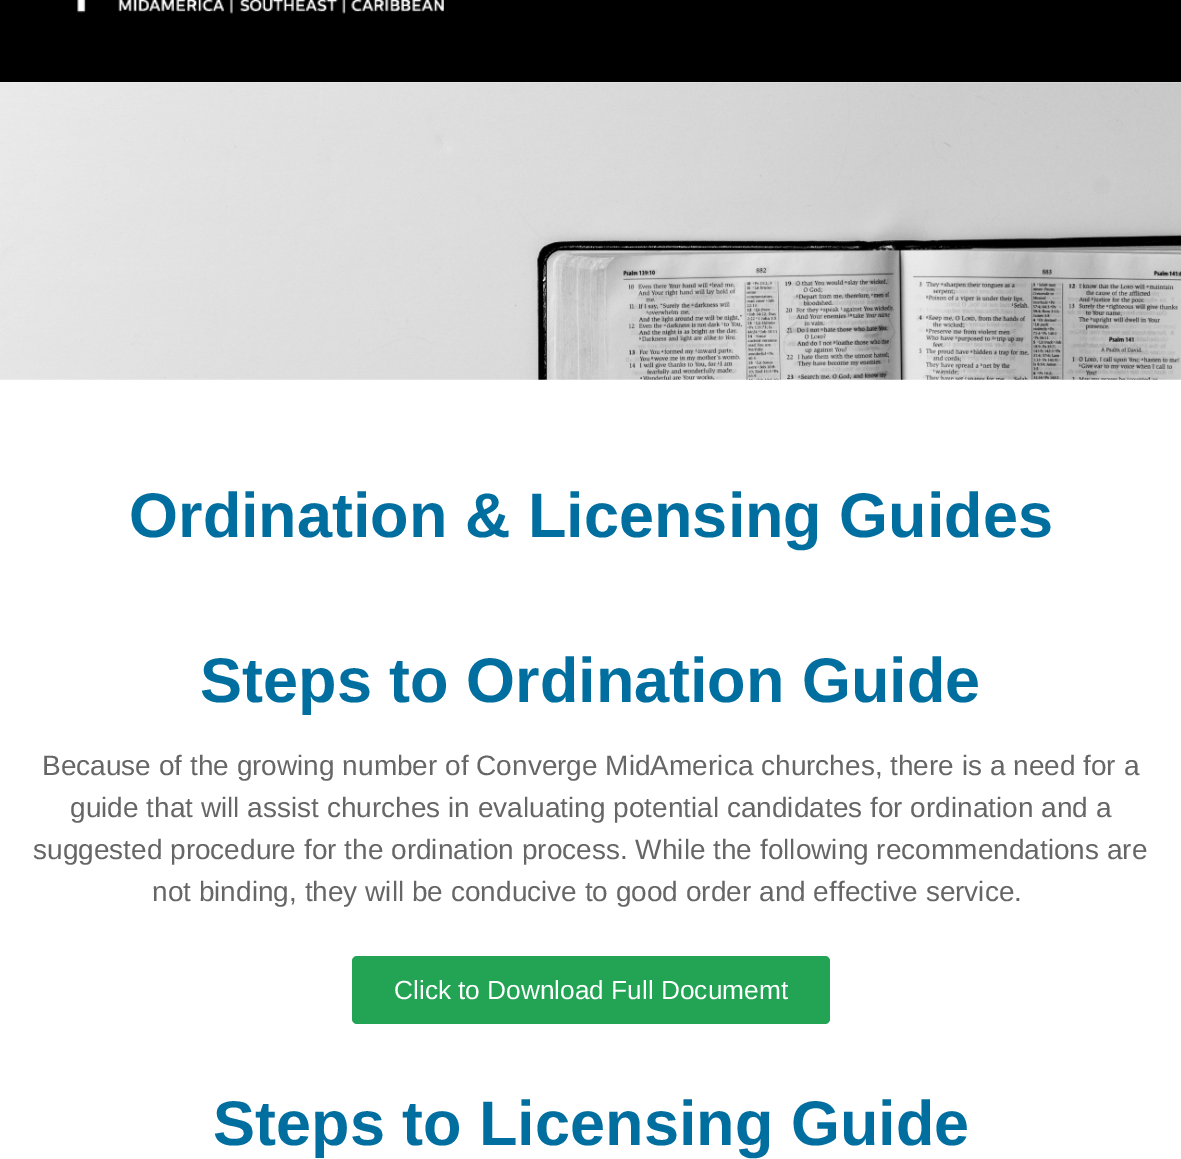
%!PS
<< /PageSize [1181 1159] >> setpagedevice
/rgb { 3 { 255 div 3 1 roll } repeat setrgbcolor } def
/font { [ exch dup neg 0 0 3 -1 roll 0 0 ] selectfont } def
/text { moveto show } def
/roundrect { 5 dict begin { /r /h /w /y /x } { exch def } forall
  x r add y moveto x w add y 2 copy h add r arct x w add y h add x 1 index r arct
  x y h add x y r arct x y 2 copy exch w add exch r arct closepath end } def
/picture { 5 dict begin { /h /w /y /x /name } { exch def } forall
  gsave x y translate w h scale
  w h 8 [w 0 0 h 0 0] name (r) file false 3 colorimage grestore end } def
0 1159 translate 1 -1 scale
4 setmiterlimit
255 255 255 rgb
0 0 1181 1159 rectfill
0 0 0 rgb
0 0 1181 82 rectfill
(img_01.rgb) 77 0 367 14 picture
(img_02.rgb) 0 82 1181 298 picture
35 164 85 rgb
352 956 478 68 5 roundrect fill
/LiberationSans-Bold 63 font
0 110 159 rgb
(Ordination & Licensing Guides) 129 537 text
(Steps to Ordination Guide) 200 702 text
/LiberationSans-Regular 28 font
102 102 102 rgb
(Because of the growing number of Converge MidAmerica churches, there is a need for a) 42 775 text
(guide that will assist churches in evaluating potential candidates for ordination and a) 70 817 text
(suggested procedure for the ordination process. While the following recommendations are) 33 859 text
(not binding, they will be conducive to good order and effective service.) 152 901 text
/LiberationSans-Regular 26.25 font
255 255 255 rgb
(Click to Download Full Documemt) 394 999 text
/LiberationSans-Bold 63 font
0 110 159 rgb
(Steps to Licensing Guide) 213 1145 text
showpage
